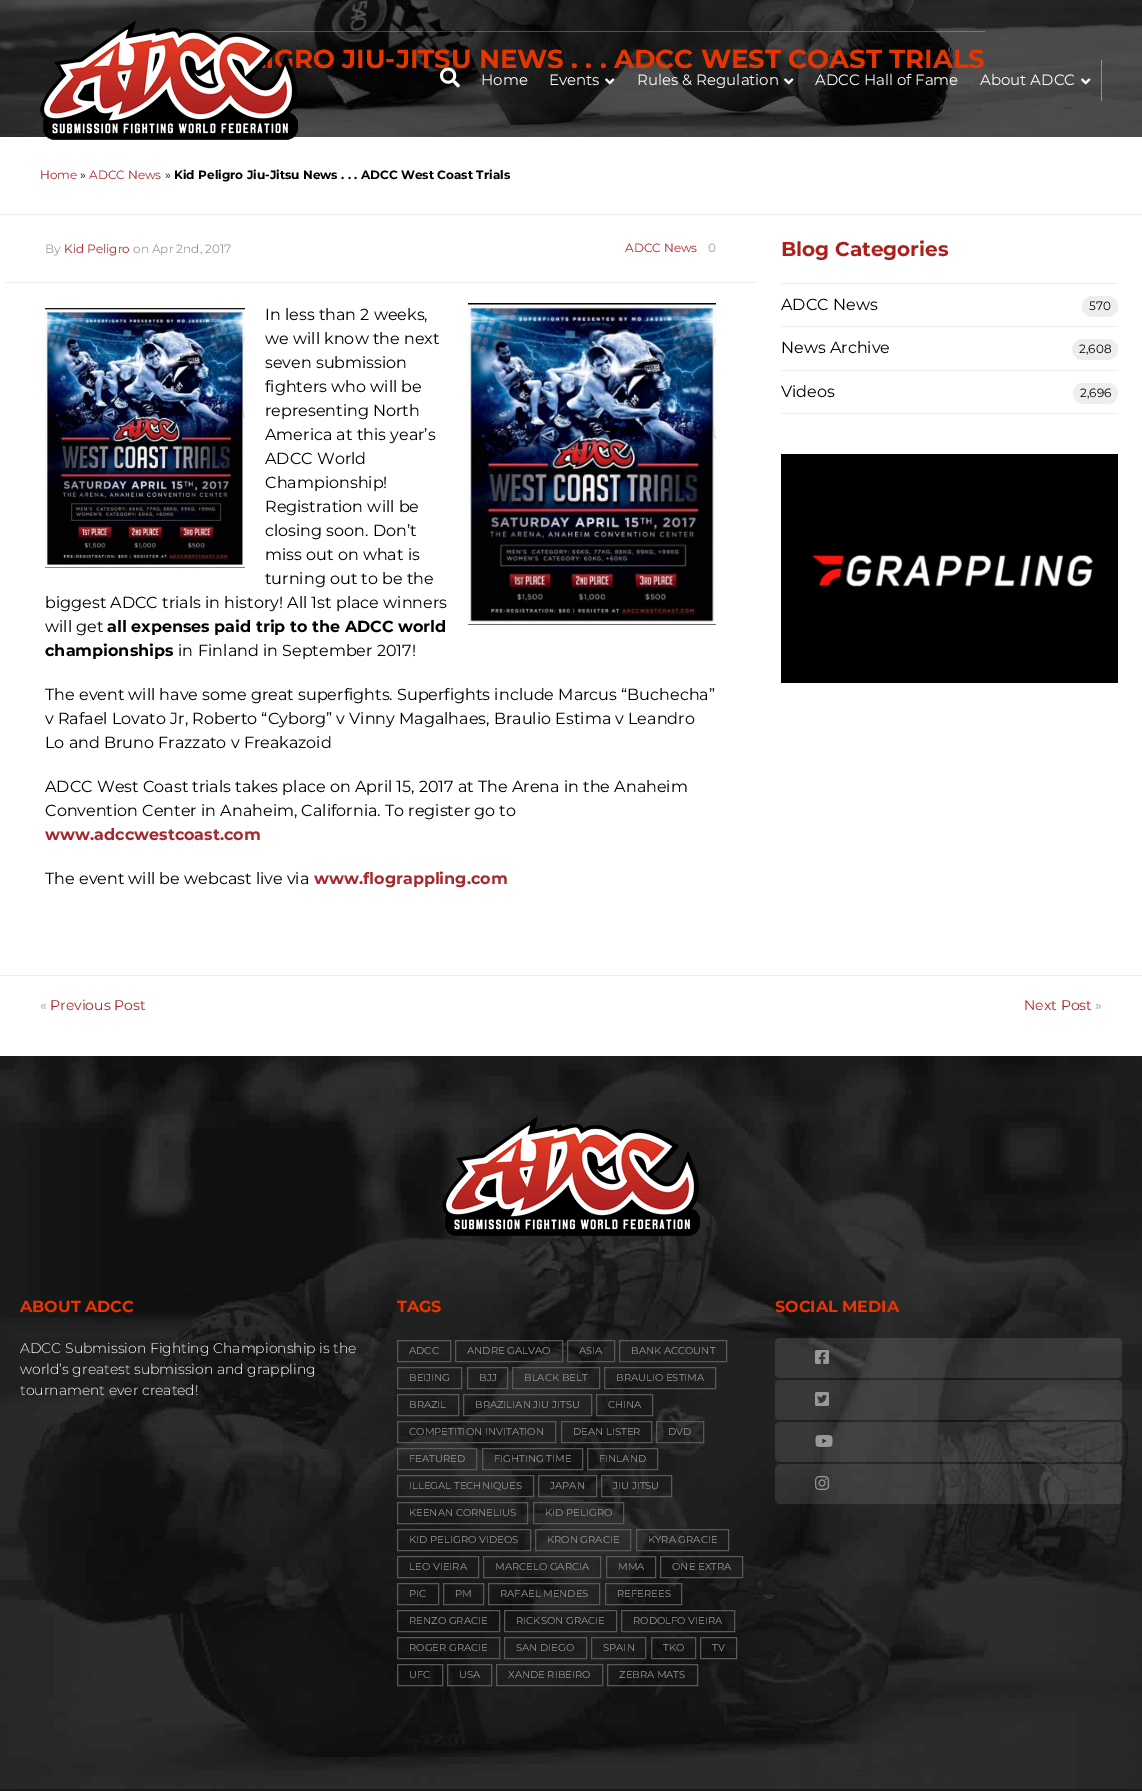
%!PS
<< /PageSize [1142 1791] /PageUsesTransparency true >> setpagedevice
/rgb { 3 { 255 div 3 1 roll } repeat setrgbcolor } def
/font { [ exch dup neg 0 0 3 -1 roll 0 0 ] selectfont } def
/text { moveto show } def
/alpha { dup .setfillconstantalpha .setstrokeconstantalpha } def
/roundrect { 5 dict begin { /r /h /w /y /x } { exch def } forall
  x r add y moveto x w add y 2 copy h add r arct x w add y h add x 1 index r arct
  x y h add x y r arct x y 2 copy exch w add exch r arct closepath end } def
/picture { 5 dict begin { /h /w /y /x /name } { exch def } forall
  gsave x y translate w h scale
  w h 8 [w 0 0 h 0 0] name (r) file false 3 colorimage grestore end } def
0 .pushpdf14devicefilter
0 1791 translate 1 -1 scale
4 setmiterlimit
255 255 255 rgb
0 0 1142 1791 rectfill
(img_01.rgb) 0 0 1142 137 picture
0.25 alpha
179 31 806 1 rectfill
1 alpha
238 238 238 rgb
0 214 1142 1 rectfill
5 282 751 1 rectfill
(img_02.rgb) 45 308 200 260 picture
(img_03.rgb) 468 303 248 322 picture
781 283 337 1 rectfill
781 326 337 1 rectfill
1082 296 36 21 10.5 roundrect fill
781 370 337 1 rectfill
1072 339 46 21 10.5 roundrect fill
781 413 337 1 rectfill
1073 383 45 21 10.5 roundrect fill
(img_04.rgb) 781 454 337 229 picture
0 975 1142 1 rectfill
(img_05.rgb) 0 1056 1142 733 picture
(img_06.rgb) 442 1116 258 120 picture
89 89 89 rgb
397.5 1340.5 53 21 rectstroke
455.5 1340.5 107 21 rectstroke
567.5 1340.5 47 21 rectstroke
619.5 1340.5 107 21 rectstroke
397.5 1367.5 64 21 rectstroke
467.5 1367.5 40 21 rectstroke
512.5 1367.5 87 21 rectstroke
604.5 1367.5 111 21 rectstroke
397.5 1394.5 61 21 rectstroke
463.5 1394.5 128 21 rectstroke
596.5 1394.5 56 21 rectstroke
397.5 1421.5 158 21 rectstroke
561.5 1421.5 90 21 rectstroke
656.5 1421.5 47 21 rectstroke
397.5 1448.5 79 21 rectstroke
482.5 1448.5 100 21 rectstroke
587.5 1448.5 70 21 rectstroke
397.5 1475.5 136 21 rectstroke
538.5 1475.5 58 21 rectstroke
601.5 1475.5 70 21 rectstroke
397.5 1502.5 130 21 rectstroke
533.5 1502.5 90 21 rectstroke
397.5 1529.5 133 21 rectstroke
535.5 1529.5 95 21 rectstroke
636.5 1529.5 92 21 rectstroke
397.5 1556.5 81 21 rectstroke
483.5 1556.5 117 21 rectstroke
606.5 1556.5 49 21 rectstroke
660.5 1556.5 82 21 rectstroke
397.5 1583.5 41 21 rectstroke
443.5 1583.5 40 21 rectstroke
488.5 1583.5 111 21 rectstroke
605.5 1583.5 76 21 rectstroke
397.5 1610.5 102 21 rectstroke
504.5 1610.5 112 21 rectstroke
621.5 1610.5 113 21 rectstroke
397.5 1637.5 102 21 rectstroke
504.5 1637.5 82 21 rectstroke
591.5 1637.5 54 21 rectstroke
651.5 1637.5 44 21 rectstroke
700.5 1637.5 36 21 rectstroke
397.5 1664.5 45 21 rectstroke
447.5 1664.5 44 21 rectstroke
496.5 1664.5 106 21 rectstroke
607.5 1664.5 90 21 rectstroke
0.1 alpha
255 255 255 rgb
775 1338 347 40 5 roundrect fill
1 alpha
(img_07.rgb) 815 1350 14 14 picture
0.1 alpha
775 1380 347 40 5 roundrect fill
1 alpha
(img_08.rgb) 815 1392 14 14 picture
0.1 alpha
775 1422 347 40 5 roundrect fill
1 alpha
(img_09.rgb) 815 1435 18 12 picture
0.1 alpha
775 1464 347 40 5 roundrect fill
1 alpha
(img_10.rgb) 815 1476 14 14 picture
25 25 25 rgb
0 1789 1142 2 rectfill
0.4 alpha
255 255 255 rgb
1101 60 1 41 rectfill
1 alpha
(img_13.rgb) 605 78 10 7 picture
(img_14.rgb) 784 78 10 7 picture
(img_15.rgb) 1081 78 10 7 picture
/Montserrat-Bold 26 font
231 53 0 rgb
(RO JIU-JITSU NEWS . . . ADCC WEST COAST TRIALS) 294 68 text
/Montserrat-Regular 12 font
169 39 44 rgb
(Home) 40 179 text
0 0 0 rgb
(») 80 179 text
169 39 44 rgb
(ADCC News) 89 179 text
0 0 0 rgb
(») 165 179 text
/Montserrat-Bold 12 font
(Kid Peligro Jiu-Jitsu News . . . ADCC West Coast Trials) 174 179 text
/Montserrat-Regular 12 font
153 153 153 rgb
(By) 45 253 text
169 39 44 rgb
(Kid Peligro) 64 253 text
153 153 153 rgb
(on Apr 2nd, 2017) 133 253 text
169 39 44 rgb
(ADCC News) 625 252 text
153 153 153 rgb
(0) 708 252 text
/Montserrat-Regular 16 font
0 0 0 rgb
(In less than 2 weeks,) 265 320 text
(we will know the next) 265 344 text
(seven submission) 265 368 text
(fighters who will be) 265 392 text
(representing North) 265 416 text
(America at this year’s) 265 440 text
(ADCC World) 265 464 text
(Championship!) 265 488 text
(Registration will be) 265 512 text
(closing soon. Don’t) 265 536 text
(miss out on what is) 265 560 text
(turning out to be the) 265 584 text
(biggest ADCC trials in history! All 1st place winners) 45 608 text
(will get) 45 632 text
/Montserrat-Bold 16 font
(all expenses paid trip to the ADCC world) 107 632 text
(championships) 45 656 text
/Montserrat-Regular 16 font
(in) 178 656 text
(Finland in September 2017!) 198 656 text
(The event will have some great superfights. Superfights include Marcus “Buchecha”) 45 700 text
(v Rafael Lovato Jr, Roberto “Cyborg” v Vinny Magalhaes, Braulio Estima v Leandro) 45 724 text
(Lo and Bruno Frazzato v Freakazoid) 45 748 text
(ADCC West Coast trials takes place on April 15, 2017 at The Arena in the Anaheim) 45 792 text
(Convention Center in Anaheim, California. To register go to) 45 816 text
/Montserrat-Bold 16 font
169 39 44 rgb
(www.adccwestcoast.com) 45 840 text
/Montserrat-Regular 16 font
0 0 0 rgb
(The event will be webcast live via) 45 884 text
/Montserrat-Bold 16 font
169 39 44 rgb
(www.flograppling.com) 314 884 text
/Montserrat-Bold 20 font
172 31 26 rgb
(Blog Categories) 781 256 text
/Montserrat-Regular 16 font
0 0 0 rgb
(ADCC News) 781 310 text
/Montserrat-Regular 12 font
(570) 1089 310 text
/Montserrat-Regular 16 font
(News Archive) 781 353 text
/Montserrat-Regular 12 font
(2,608) 1079 353 text
/Montserrat-Regular 16 font
(Videos) 781 397 text
/Montserrat-Regular 12 font
(2,696) 1080 397 text
/Montserrat-Regular 14 font
153 153 153 rgb
(«) 40 1010 text
169 39 44 rgb
(Previous Post) 50 1010 text
(Next Post) 1024 1010 text
153 153 153 rgb
(») 1095 1010 text
/Montserrat-Bold 16 font
231 53 0 rgb
(ABOUT ADCC) 20 1312 text
/Montserrat-Light 14 font
255 255 255 rgb
(ADCC Submission Fighting Championship is the) 20 1353 text
(world’s greatest submission and grappling) 20 1374 text
(tournament ever created!) 20 1395 text
/Montserrat-Bold 16 font
231 53 0 rgb
(TAGS) 397 1312 text
/Montserrat-Regular 10 font
153 153 153 rgb
(ADCC) 409 1354 text
(ANDRE GALVAO) 467 1354 text
(ASIA) 579 1354 text
(BANK ACCOUNT) 631 1354 text
(BEIJING) 409 1381 text
(BJJ) 479 1381 text
(BLACK BELT) 524 1381 text
(BRAULIO ESTIMA) 616 1381 text
(BRAZIL) 409 1408 text
(BRAZILIAN JIU JITSU) 475 1408 text
(CHINA) 608 1408 text
(COMPETITION INVITATION) 409 1435 text
(DEAN LISTER) 573 1435 text
(DVD) 668 1435 text
(FEATURED) 409 1462 text
(FIGHTING TIME) 494 1462 text
(FINLAND) 599 1462 text
(ILLEGAL TECHNIQUES) 409 1489 text
(JAPAN) 550 1489 text
(JIU JITSU) 613 1489 text
(KEENAN CORNELIUS) 409 1516 text
(KID PELIGRO) 545 1516 text
(KID PELIGRO VIDEOS) 409 1543 text
(KRON GRACIE) 547 1543 text
(KYRA GRACIE) 648 1543 text
(LEO VIEIRA) 409 1570 text
(MARCELO GARCIA) 495 1570 text
(MMA) 618 1570 text
(ONE EXTRA) 672 1570 text
(PIC) 409 1597 text
(PM) 455 1597 text
(RAFAEL MENDES) 500 1597 text
(REFEREES) 617 1597 text
(RENZO GRACIE) 409 1624 text
(RICKSON GRACIE) 516 1624 text
(RODOLFO VIEIRA) 633 1624 text
(ROGER GRACIE) 409 1651 text
(SAN DIEGO) 516 1651 text
(SPAIN) 603 1651 text
(TKO) 663 1651 text
(TV) 712 1651 text
(UFC) 409 1678 text
(USA) 459 1678 text
(XANDE RIBEIRO) 508 1678 text
(ZEBRA MATS) 619 1678 text
/Montserrat-Bold 16 font
231 53 0 rgb
(SOCIAL MEDIA) 775 1312 text
(img_11.rgb) 40 20 258 120 picture
(img_12.rgb) 440 67 20 21 picture
/Montserrat-Regular 15 font
255 255 255 rgb
(Home) 481 85 text
(Events) 549 85 text
(Rules & Regulation) 637 85 text
(ADCC Hall of Fame) 815 85 text
(About ADCC) 980 85 text
.poppdf14devicefilter showpage
